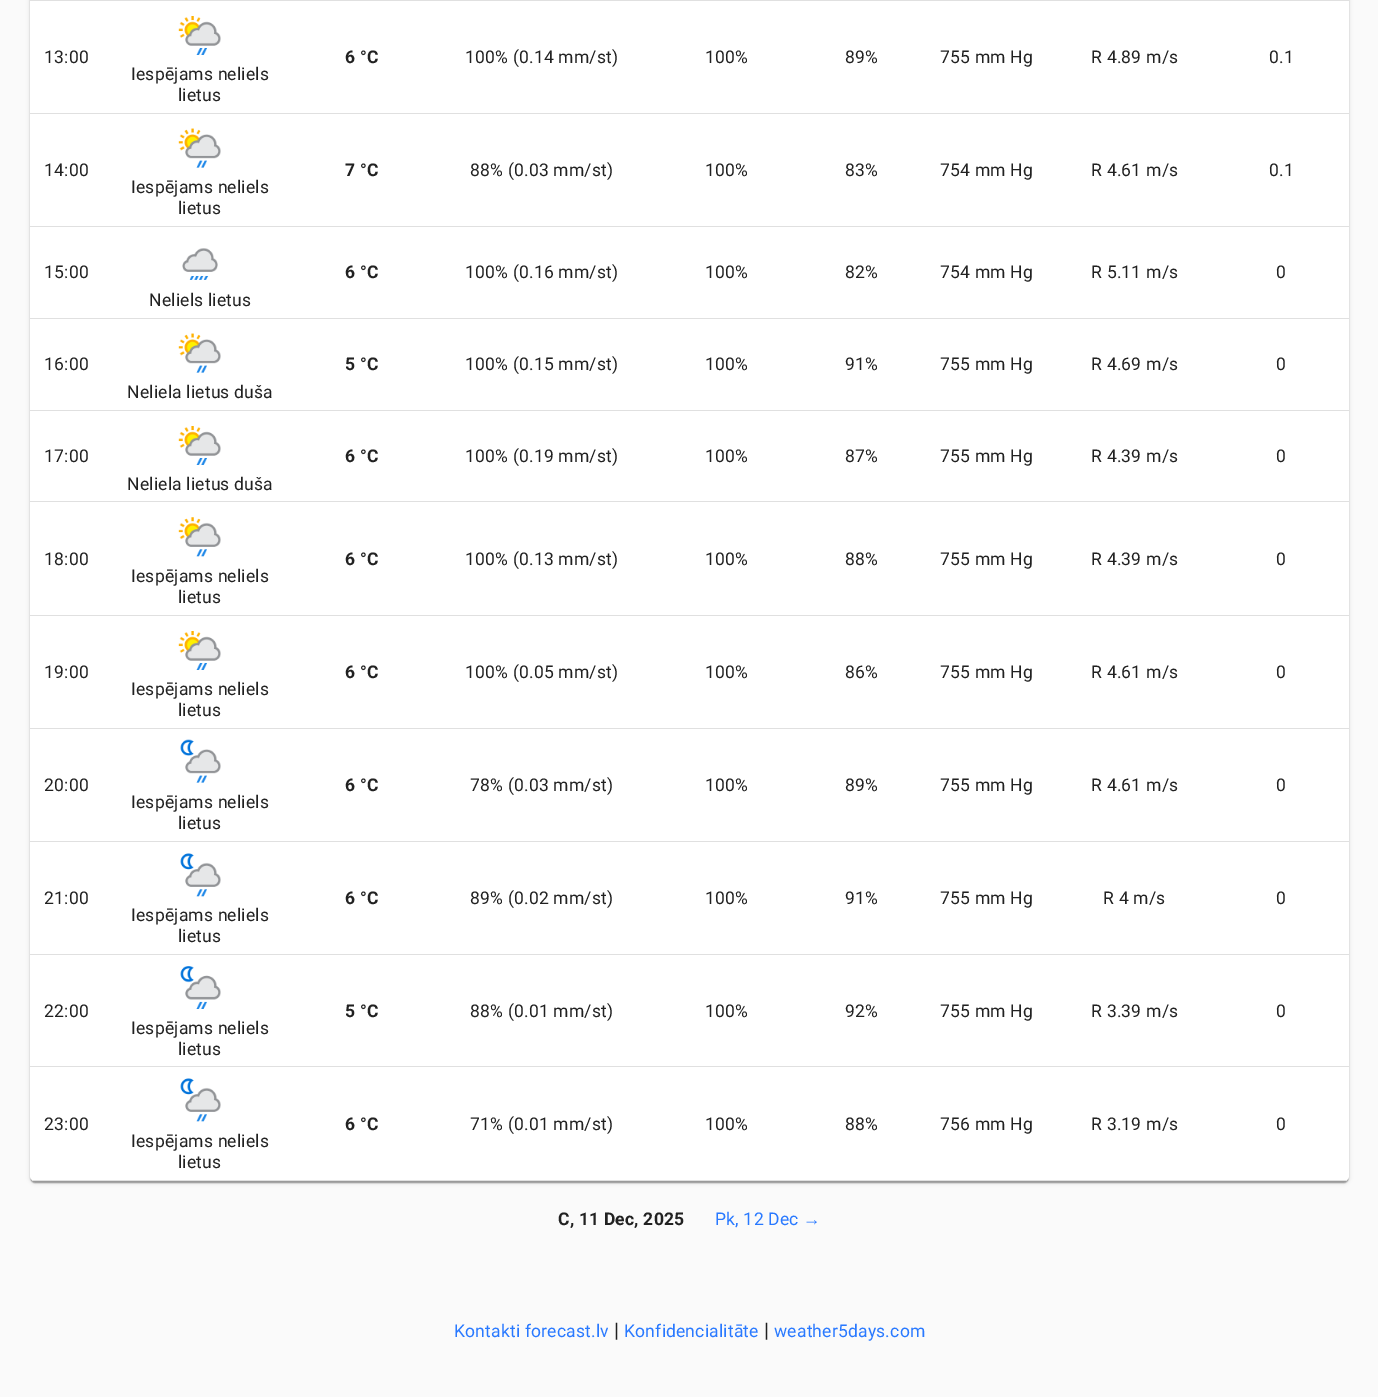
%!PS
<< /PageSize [1378 1397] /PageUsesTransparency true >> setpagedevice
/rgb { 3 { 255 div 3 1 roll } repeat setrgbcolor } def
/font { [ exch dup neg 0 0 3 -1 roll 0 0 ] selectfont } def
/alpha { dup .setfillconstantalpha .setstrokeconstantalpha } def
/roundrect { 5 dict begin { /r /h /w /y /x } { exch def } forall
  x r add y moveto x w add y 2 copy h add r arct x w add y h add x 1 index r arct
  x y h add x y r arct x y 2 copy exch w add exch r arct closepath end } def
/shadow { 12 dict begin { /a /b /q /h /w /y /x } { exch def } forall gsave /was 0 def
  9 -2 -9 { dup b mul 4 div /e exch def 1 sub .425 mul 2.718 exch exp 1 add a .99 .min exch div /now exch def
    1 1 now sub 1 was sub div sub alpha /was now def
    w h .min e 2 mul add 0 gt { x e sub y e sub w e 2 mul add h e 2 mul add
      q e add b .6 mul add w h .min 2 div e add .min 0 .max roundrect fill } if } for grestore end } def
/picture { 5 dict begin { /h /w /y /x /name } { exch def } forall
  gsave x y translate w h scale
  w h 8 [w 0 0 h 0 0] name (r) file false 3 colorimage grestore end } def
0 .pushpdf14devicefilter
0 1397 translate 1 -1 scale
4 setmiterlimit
250 250 250 rgb
0 0 1378 1397 rectfill
0 0 0 rgb
30 -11 1319 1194 5 2 0.12 shadow
30 -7 1319 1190 5 0.5 0.14 shadow
31 -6 1317 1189 4 0.5 0.2 shadow
255 255 255 rgb
30 -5 1319 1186 5 roundrect fill
224 224 224 rgb
30 0 1319 1 rectfill
30 113 1319 1 rectfill
(img_01.rgb) 178 16 43 39 picture
30 226 1319 1 rectfill
(img_02.rgb) 178 128 43 40 picture
30 318 1319 1 rectfill
(img_03.rgb) 182 248 36 32 picture
30 410 1319 1 rectfill
(img_04.rgb) 178 333 43 40 picture
30 501 1319 1 rectfill
(img_05.rgb) 178 426 43 39 picture
30 615 1319 1 rectfill
(img_06.rgb) 178 517 43 40 picture
30 728 1319 1 rectfill
(img_01.rgb) 178 631 43 39 picture
30 841 1319 1 rectfill
(img_07.rgb) 180 739 41 44 picture
30 954 1319 1 rectfill
(img_08.rgb) 180 853 41 44 picture
30 1066 1319 1 rectfill
(img_09.rgb) 180 966 41 43 picture
gsave
30 -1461 1319 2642 5 roundrect clip newpath
1213 1180 136 1 rectfill
grestore
113 1180 1101 1 rectfill
gsave
30 -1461 1319 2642 5 roundrect clip newpath
30 1180 84 1 rectfill
grestore
(img_08.rgb) 180 1078 41 44 picture
/Roboto-Regular 17.5 font
33 33 33 rgb
44 63 moveto 0.2 0 (13:00) ashow
/Roboto-Bold 17.5 font
345 63 moveto 0.2 0 (6 °C) ashow
/Roboto-Regular 17.5 font
465 63 moveto 0.2 0 (100% \(0.14 mm/st\)) ashow
705 63 moveto 0.2 0 (100%) ashow
845 63 moveto 0.2 0 (89%) ashow
940 63 moveto 0.2 0 (755 mm Hg) ashow
1091 63 moveto 0.2 0 (R 4.89 m/s) ashow
1269 63 moveto 0.2 0 (0.1) ashow
131 80 moveto 0.2 0 (Iespējams neliels) ashow
178 101 moveto 0.2 0 (lietus) ashow
44 176 moveto 0.2 0 (14:00) ashow
/Roboto-Bold 17.5 font
345 176 moveto 0.2 0 (7 °C) ashow
/Roboto-Regular 17.5 font
470 176 moveto 0.2 0 (88% \(0.03 mm/st\)) ashow
705 176 moveto 0.2 0 (100%) ashow
845 176 moveto 0.2 0 (83%) ashow
940 176 moveto 0.2 0 (754 mm Hg) ashow
1091 176 moveto 0.2 0 (R 4.61 m/s) ashow
1269 176 moveto 0.2 0 (0.1) ashow
131 193 moveto 0.2 0 (Iespējams neliels) ashow
178 214 moveto 0.2 0 (lietus) ashow
44 278 moveto 0.2 0 (15:00) ashow
/Roboto-Bold 17.5 font
345 278 moveto 0.2 0 (6 °C) ashow
/Roboto-Regular 17.5 font
465 278 moveto 0.2 0 (100% \(0.16 mm/st\)) ashow
705 278 moveto 0.2 0 (100%) ashow
845 278 moveto 0.2 0 (82%) ashow
940 278 moveto 0.2 0 (754 mm Hg) ashow
1091 278 moveto 0.2 0 (R 5.11 m/s) ashow
1276 278 moveto 0.2 0 (0) ashow
149 306 moveto 0.2 0 (Neliels lietus) ashow
44 370 moveto 0.2 0 (16:00) ashow
/Roboto-Bold 17.5 font
345 370 moveto 0.2 0 (5 °C) ashow
/Roboto-Regular 17.5 font
465 370 moveto 0.2 0 (100% \(0.15 mm/st\)) ashow
705 370 moveto 0.2 0 (100%) ashow
845 370 moveto 0.2 0 (91%) ashow
940 370 moveto 0.2 0 (755 mm Hg) ashow
1091 370 moveto 0.2 0 (R 4.69 m/s) ashow
1276 370 moveto 0.2 0 (0) ashow
127 398 moveto 0.2 0 (Neliela lietus duša) ashow
44 462 moveto 0.2 0 (17:00) ashow
/Roboto-Bold 17.5 font
345 462 moveto 0.2 0 (6 °C) ashow
/Roboto-Regular 17.5 font
465 462 moveto 0.2 0 (100% \(0.19 mm/st\)) ashow
705 462 moveto 0.2 0 (100%) ashow
845 462 moveto 0.2 0 (87%) ashow
940 462 moveto 0.2 0 (755 mm Hg) ashow
1091 462 moveto 0.2 0 (R 4.39 m/s) ashow
1276 462 moveto 0.2 0 (0) ashow
127 490 moveto 0.2 0 (Neliela lietus duša) ashow
44 565 moveto 0.2 0 (18:00) ashow
/Roboto-Bold 17.5 font
345 565 moveto 0.2 0 (6 °C) ashow
/Roboto-Regular 17.5 font
465 565 moveto 0.2 0 (100% \(0.13 mm/st\)) ashow
705 565 moveto 0.2 0 (100%) ashow
845 565 moveto 0.2 0 (88%) ashow
940 565 moveto 0.2 0 (755 mm Hg) ashow
1091 565 moveto 0.2 0 (R 4.39 m/s) ashow
1276 565 moveto 0.2 0 (0) ashow
131 582 moveto 0.2 0 (Iespējams neliels) ashow
178 603 moveto 0.2 0 (lietus) ashow
44 678 moveto 0.2 0 (19:00) ashow
/Roboto-Bold 17.5 font
345 678 moveto 0.2 0 (6 °C) ashow
/Roboto-Regular 17.5 font
465 678 moveto 0.2 0 (100% \(0.05 mm/st\)) ashow
705 678 moveto 0.2 0 (100%) ashow
845 678 moveto 0.2 0 (86%) ashow
940 678 moveto 0.2 0 (755 mm Hg) ashow
1091 678 moveto 0.2 0 (R 4.61 m/s) ashow
1276 678 moveto 0.2 0 (0) ashow
131 695 moveto 0.2 0 (Iespējams neliels) ashow
178 716 moveto 0.2 0 (lietus) ashow
44 791 moveto 0.2 0 (20:00) ashow
/Roboto-Bold 17.5 font
345 791 moveto 0.2 0 (6 °C) ashow
/Roboto-Regular 17.5 font
470 791 moveto 0.2 0 (78% \(0.03 mm/st\)) ashow
705 791 moveto 0.2 0 (100%) ashow
845 791 moveto 0.2 0 (89%) ashow
940 791 moveto 0.2 0 (755 mm Hg) ashow
1091 791 moveto 0.2 0 (R 4.61 m/s) ashow
1276 791 moveto 0.2 0 (0) ashow
131 808 moveto 0.2 0 (Iespējams neliels) ashow
178 829 moveto 0.2 0 (lietus) ashow
44 904 moveto 0.2 0 (21:00) ashow
/Roboto-Bold 17.5 font
345 904 moveto 0.2 0 (6 °C) ashow
/Roboto-Regular 17.5 font
470 904 moveto 0.2 0 (89% \(0.02 mm/st\)) ashow
705 904 moveto 0.2 0 (100%) ashow
845 904 moveto 0.2 0 (91%) ashow
940 904 moveto 0.2 0 (755 mm Hg) ashow
1103 904 moveto 0.2 0 (R 4 m/s) ashow
1276 904 moveto 0.2 0 (0) ashow
131 921 moveto 0.2 0 (Iespējams neliels) ashow
178 942 moveto 0.2 0 (lietus) ashow
44 1017 moveto 0.2 0 (22:00) ashow
/Roboto-Bold 17.5 font
345 1017 moveto 0.2 0 (5 °C) ashow
/Roboto-Regular 17.5 font
470 1017 moveto 0.2 0 (88% \(0.01 mm/st\)) ashow
705 1017 moveto 0.2 0 (100%) ashow
845 1017 moveto 0.2 0 (92%) ashow
940 1017 moveto 0.2 0 (755 mm Hg) ashow
1091 1017 moveto 0.2 0 (R 3.39 m/s) ashow
1276 1017 moveto 0.2 0 (0) ashow
131 1034 moveto 0.2 0 (Iespējams neliels) ashow
178 1055 moveto 0.2 0 (lietus) ashow
44 1130 moveto 0.2 0 (23:00) ashow
/Roboto-Bold 17.5 font
345 1130 moveto 0.2 0 (6 °C) ashow
/Roboto-Regular 17.5 font
470 1130 moveto 0.2 0 (71% \(0.01 mm/st\)) ashow
705 1130 moveto 0.2 0 (100%) ashow
845 1130 moveto 0.2 0 (88%) ashow
940 1130 moveto 0.2 0 (756 mm Hg) ashow
1091 1130 moveto 0.2 0 (R 3.19 m/s) ashow
1276 1130 moveto 0.2 0 (0) ashow
131 1147 moveto 0.2 0 (Iespējams neliels) ashow
178 1168 moveto 0.2 0 (lietus) ashow
/Roboto-Bold 17.5 font
558 1225 moveto 0.2 0 (C, 11 Dec, 2025) ashow
/Roboto-Regular 17.5 font
41 121 255 rgb
715 1225 moveto 0.2 0 (Pk, 12 Dec) ashow
/LiberationSans-Regular 17.5 font
803 1225 moveto 0.2 0 (→) ashow
/Roboto-Regular 17.5 font
454 1337 moveto 0.2 0 (Kontakti forecast.lv) ashow
/Roboto-Regular 20 font
33 33 33 rgb
614 1337 moveto 0.2 0 (|) ashow
/Roboto-Regular 17.5 font
41 121 255 rgb
624 1337 moveto 0.2 0 (Konfidencialitāte) ashow
/Roboto-Regular 20 font
33 33 33 rgb
764 1337 moveto 0.2 0 (|) ashow
/Roboto-Regular 17.5 font
41 121 255 rgb
774 1337 moveto 0.2 0 (weather5days.com) ashow
.poppdf14devicefilter showpage
